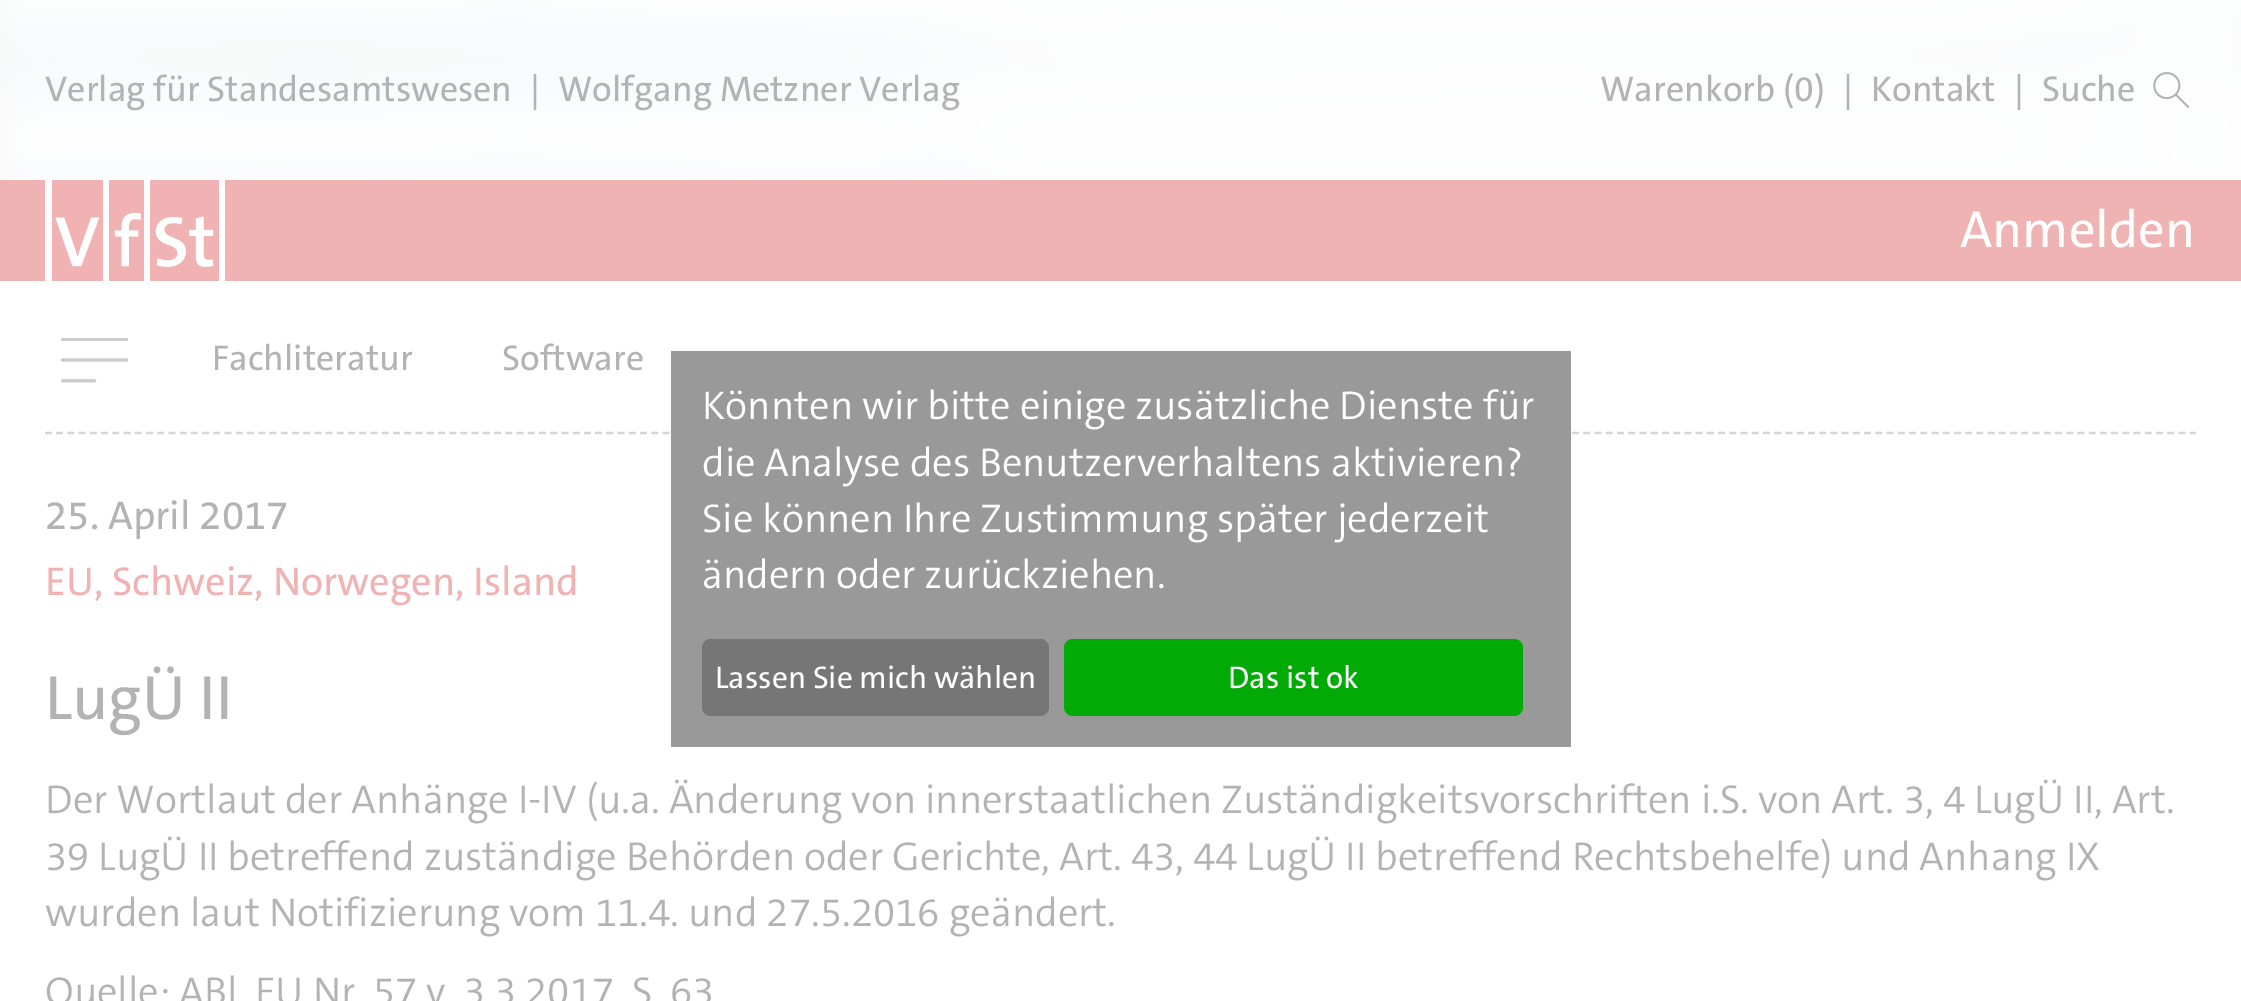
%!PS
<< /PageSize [2241 1001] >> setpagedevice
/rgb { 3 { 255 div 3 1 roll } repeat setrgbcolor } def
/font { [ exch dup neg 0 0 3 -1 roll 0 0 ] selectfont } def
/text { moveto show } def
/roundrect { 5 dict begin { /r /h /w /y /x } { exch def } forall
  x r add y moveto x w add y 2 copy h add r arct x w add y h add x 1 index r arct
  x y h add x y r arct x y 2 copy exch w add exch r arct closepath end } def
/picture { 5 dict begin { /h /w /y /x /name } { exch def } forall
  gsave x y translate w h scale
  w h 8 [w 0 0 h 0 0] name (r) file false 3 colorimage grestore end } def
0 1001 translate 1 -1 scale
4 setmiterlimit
255 255 255 rgb
0 0 2241 1001 rectfill
(img_01.rgb) 0 0 2241 180 picture
(img_02.rgb) 2153 72 36 36 picture
240 179 179 rgb
0 180 2241 101 rectfill
(img_03.rgb) 45 180 180 101 picture
214 214 214 rgb
2.2 setlinewidth
[6.75 4.48] 0 setdash
45 433 moveto 2151 0 rlineto stroke
(img_04.rgb) 61 338 67 45 picture
153 153 153 rgb
671 351 900 396 rectfill
118 118 118 rgb
702 639 347 77 9 roundrect fill
2 170 5 rgb
1064 639 459 77 9 roundrect fill
/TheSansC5-Medium 36 font
179 179 179 rgb
(Verlag für Standesamtswesen) 45 101 text
(|) 530 101 text
(Wolfgang Metzner Verlag) 558 101 text
(Warenkorb \(0\)) 1600 101 text
(|) 1843 101 text
(Kontakt) 1871 101 text
(|) 2014 101 text
(Suche) 2042 101 text
/TheSansC5-Medium 52.5 font
255 255 255 rgb
(Anmelden) 1960 247 text
/TheSansC5-Medium 36 font
179 179 179 rgb
(Fachliteratur) 212 370 text
(Software) 502 370 text
/TheSansC5-Medium 40.5 font
(25. April 2017) 45 529 text
240 179 179 rgb
(EU, Schweiz, Norwegen, Island) 45 595 text
/TheSansC5-Medium 63 font
179 179 179 rgb
(LugÜ II) 45 719 text
/TheSansC5-Light 40.5 font
(Der Wortlaut der Anhänge I-IV \(u.a. Änderung von innerstaatlichen Zuständigkeitsvorschriften i.S. von Art. 3, 4 LugÜ II, Art.) 45 813 text
(39 LugÜ II betreffend zuständige Behörden oder Gerichte, Art. 43, 44 LugÜ II betreffend Rechtsbehelfe\) und Anhang IX) 45 870 text
(wurden laut Notifizierung vom 11.4. und 27.5.2016 geändert.) 45 926 text
(Quelle: ABl. EU Nr. 57 v. 3.3.2017, S. 63) 45 1005 text
255 255 255 rgb
(Könnten wir bitte einige zusätzliche Dienste für) 702 419 text
(die Analyse des Benutzerverhaltens aktivieren?) 702 476 text
(Sie können Ihre Zustimmung später jederzeit) 702 532 text
(ändern oder zurückziehen.) 702 588 text
/TheSansC5-Medium 31.5 font
(Lassen Sie mich wählen) 715 688 text
(Das ist ok) 1228 688 text
showpage
